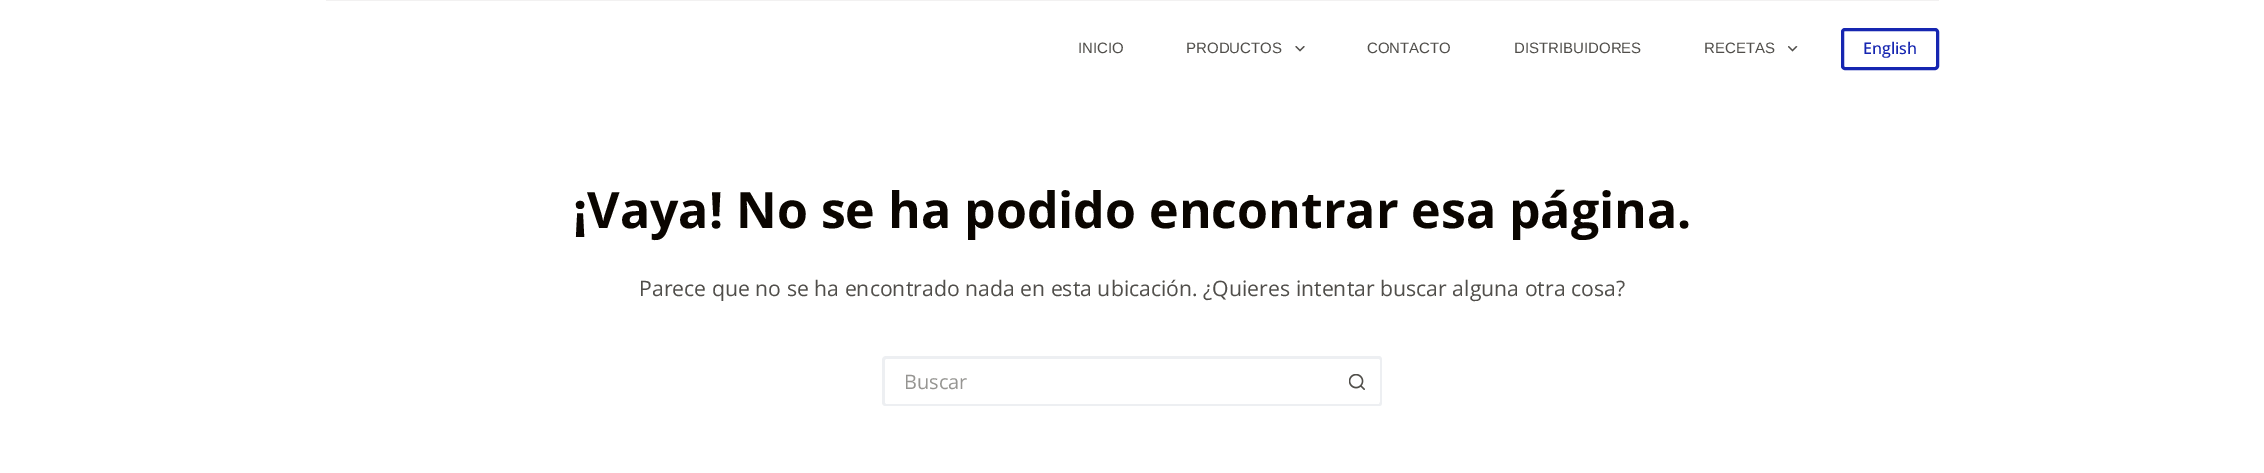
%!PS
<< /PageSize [2264 473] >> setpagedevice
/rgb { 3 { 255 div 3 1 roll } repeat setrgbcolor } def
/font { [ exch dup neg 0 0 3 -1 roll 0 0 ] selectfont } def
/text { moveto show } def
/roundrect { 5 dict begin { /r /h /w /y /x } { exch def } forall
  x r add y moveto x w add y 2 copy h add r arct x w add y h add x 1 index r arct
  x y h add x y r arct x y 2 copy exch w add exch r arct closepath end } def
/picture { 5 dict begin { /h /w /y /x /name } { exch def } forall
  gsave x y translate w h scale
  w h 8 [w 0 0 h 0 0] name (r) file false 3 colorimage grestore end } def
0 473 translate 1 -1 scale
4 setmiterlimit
255 255 255 rgb
0 0 2264 473 rectfill
242 241 241 rgb
326 0 1613 1 rectfill
(img_01.rgb) 1295 46 10 6 picture
(img_02.rgb) 1788 46 10 6 picture
22 38 177 rgb
3 setlinewidth
1842.5 29.5 95 39 2.5 roundrect stroke
237 239 242 rgb
886 356 moveto 446 0 rlineto 0 50 rlineto -446 0 rlineto -2 0 -4 -1 -4 -4 rcurveto 0 -42 rlineto 0 -2 2 -4 4 -4 rcurveto closepath 886 359 moveto 446 0 rlineto 0 45 rlineto -446 0 rlineto -1 -1 rlineto 0 -43 rlineto 0 -1 1 -1 1 -1 rcurveto closepath eofill
1332 356 moveto 47 0 rlineto 2 0 3 2 3 4 rcurveto 0 42 rlineto 0 3 -1 4 -3 4 rcurveto -47 0 rlineto closepath 1332 359 moveto 47 0 rlineto 0 0 1 0 1 1 rcurveto 0 42 rlineto 0 1 -1 2 -1 2 rcurveto -47 0 rlineto closepath eofill
(img_03.rgb) 1349 374 16 16 picture
/LiberationSans-Regular 15 font
80 78 74 rgb
(INICIO) 1078 53 text
(PRODUCTOS) 1186 53 text
(CONTACTO) 1367 53 text
(DISTRIBUIDORES) 1514 53 text
(RECETAS) 1704 53 text
/OpenSans-Medium 16 font
22 38 177 rgb
(English) 1863 54 text
/OpenSans-Bold 50 font
10 5 0 rgb
(¡Vaya! No se ha podido encontrar esa página.) 573 228 text
/OpenSans-Regular 21.25 font
80 78 74 rgb
(Parece que no se ha encontrado nada en esta ubicación. ¿Quieres intentar buscar alguna otra cosa?) 639 296 text
/OpenSans-Regular 20 font
150 149 146 rgb
(Buscar) 904 389 text
showpage
